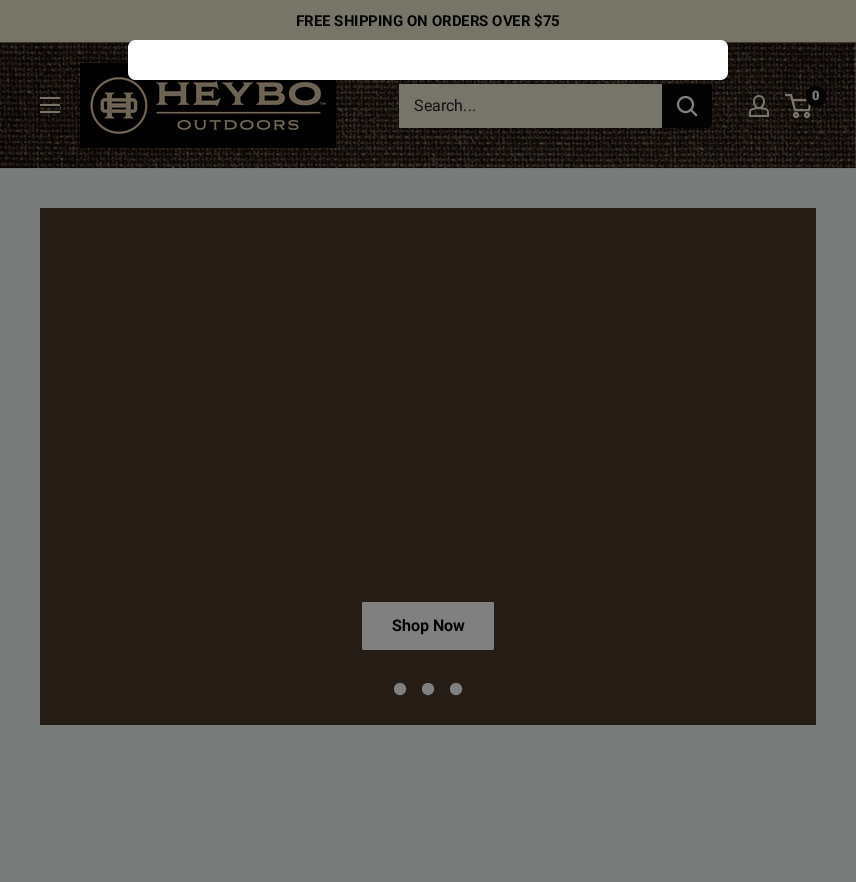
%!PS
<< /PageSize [856 882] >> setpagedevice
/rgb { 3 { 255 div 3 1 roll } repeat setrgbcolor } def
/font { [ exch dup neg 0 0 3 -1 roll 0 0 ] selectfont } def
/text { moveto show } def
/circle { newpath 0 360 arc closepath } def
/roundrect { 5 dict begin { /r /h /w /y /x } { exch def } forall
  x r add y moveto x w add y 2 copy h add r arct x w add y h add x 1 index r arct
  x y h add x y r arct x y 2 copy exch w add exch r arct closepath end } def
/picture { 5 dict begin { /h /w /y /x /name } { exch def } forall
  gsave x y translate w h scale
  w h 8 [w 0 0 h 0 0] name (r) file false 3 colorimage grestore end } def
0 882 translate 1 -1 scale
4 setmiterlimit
122 123 123 rgb
0 0 856 882 rectfill
119 116 104 rgb
0 0 856 42 rectfill
66 55 46 rgb
0 42 856 1 rectfill
(img_01.rgb) 0 43 856 126 picture
(img_02.rgb) 80 63 256 85 picture
255 255 255 rgb
128 40 600 40 8 roundrect fill
(img_03.rgb) 749 95 20 22 picture
119 116 104 rgb
2 setlinewidth
796 115 2 circle stroke
807 115 2 circle stroke
792.5 100 moveto 18 0 rlineto -1.5 10 rlineto -14 0 rlineto -4 -15 rlineto -6 0 rlineto stroke
3 3 3 rgb
806 86 20 21 10 roundrect fill
(img_04.rgb) 40 97 20 16 picture
119 116 105 rgb
399 84 263 44 rectfill
3 3 3 rgb
662 84 moveto 47 0 rlineto 1.5 0 3 1.5 3 3 rcurveto 0 38 rlineto 0 1.5 -1.5 3 -3 3 rcurveto -47 0 rlineto closepath fill
128 128 128 rgb
2 setlinecap
696 115 moveto -5 -5 rlineto stroke
0 setlinecap
685.5 104.5 7.5 circle stroke
37 28 22 rgb
40 208 776 517 rectfill
128 128 128 rgb
362 602 132 48 2 roundrect fill
400 689 4.5 circle gsave fill grestore
3 setlinewidth
stroke
428 689 4.5 circle gsave fill grestore
stroke
456 689 4.5 circle gsave fill grestore
stroke
/Roboto-Bold 15 font
3 3 3 rgb
(FREE SHIPPING ON ORDERS OVER $75) 296 26 text
/Roboto-Black 13 font
128 128 128 rgb
(0) 812 100 text
/Roboto-Regular 16 font
19 20 21 rgb
(Search...) 414 111 text
/Roboto-Bold 16 font
3 3 3 rgb
(Shop Now) 392 631 text
showpage
